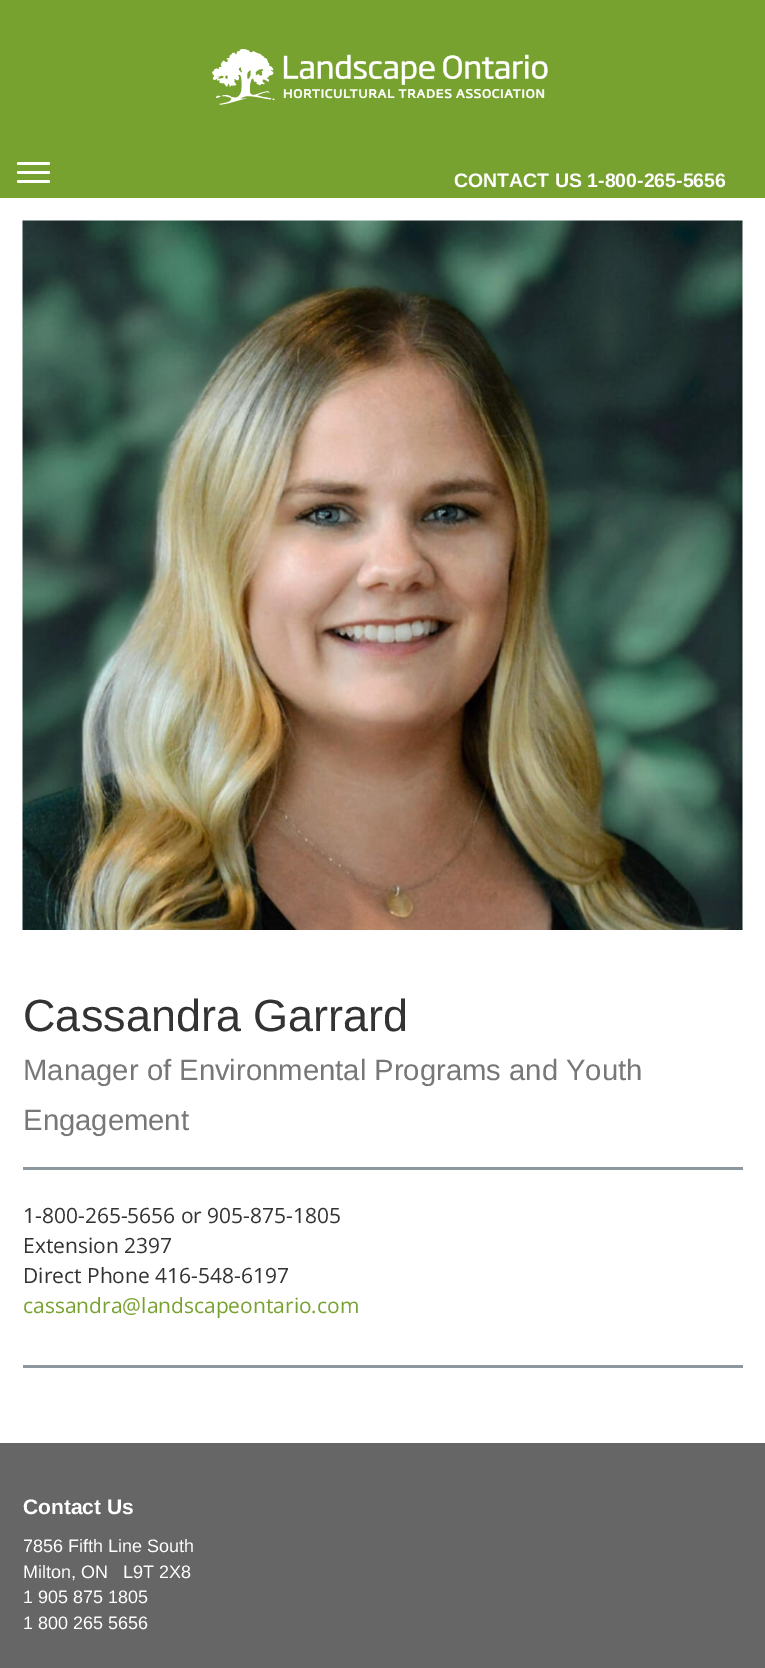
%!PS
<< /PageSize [765 1668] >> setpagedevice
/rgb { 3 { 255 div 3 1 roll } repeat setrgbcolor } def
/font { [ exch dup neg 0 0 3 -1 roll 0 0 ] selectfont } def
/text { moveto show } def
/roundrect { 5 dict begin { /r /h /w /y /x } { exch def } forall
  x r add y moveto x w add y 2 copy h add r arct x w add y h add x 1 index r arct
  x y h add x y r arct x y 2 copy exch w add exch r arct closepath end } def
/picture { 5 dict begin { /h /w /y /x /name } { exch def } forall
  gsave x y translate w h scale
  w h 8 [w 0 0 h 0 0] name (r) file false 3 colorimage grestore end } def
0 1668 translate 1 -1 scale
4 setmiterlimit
255 255 255 rgb
0 0 765 1668 rectfill
120 162 47 rgb
0 0 765 198 rectfill
(img_01.rgb) 212 49 336 56 picture
255 255 255 rgb
17 162 33 3 1.5 roundrect fill
17 171 33 3 1.5 roundrect fill
17 180 33 3 1.5 roundrect fill
(img_02.rgb) 22 220 721 710 picture
140 152 157 rgb
23 1167 720 3 rectfill
23 1365 720 3 rectfill
102 102 102 rgb
0 1443 765 225 rectfill
/LiberationSans-Bold 19.5 font
255 255 255 rgb
(CONTACT US 1-800-265-5656) 454 187 text
/LiberationSans-Regular 45 font
51 51 51 rgb
(Cassandra Garrard) 23 1031 text
/LiberationSans-Regular 29.25 font
119 119 119 rgb
(Manager of Environmental Programs and Youth) 23 1080 text
(Engagement) 23 1130 text
/OpenSans-Regular 21 font
51 51 51 rgb
(1-800-265-5656 or 905-875-1805) 23 1223 text
(Extension 2397) 23 1253 text
(Direct Phone 416-548-6197) 23 1283 text
120 162 47 rgb
(cassandra@landscapeontario.com) 23 1313 text
/LiberationSans-Bold 21 font
255 255 255 rgb
(Contact Us) 23 1514 text
/LiberationSans-Regular 18 font
(7856 Fifth Line South) 23 1552 text
(Milton, ON   L9T 2X8) 23 1578 text
(1 905 875 1805) 23 1603 text
(1 800 265 5656) 23 1629 text
showpage
